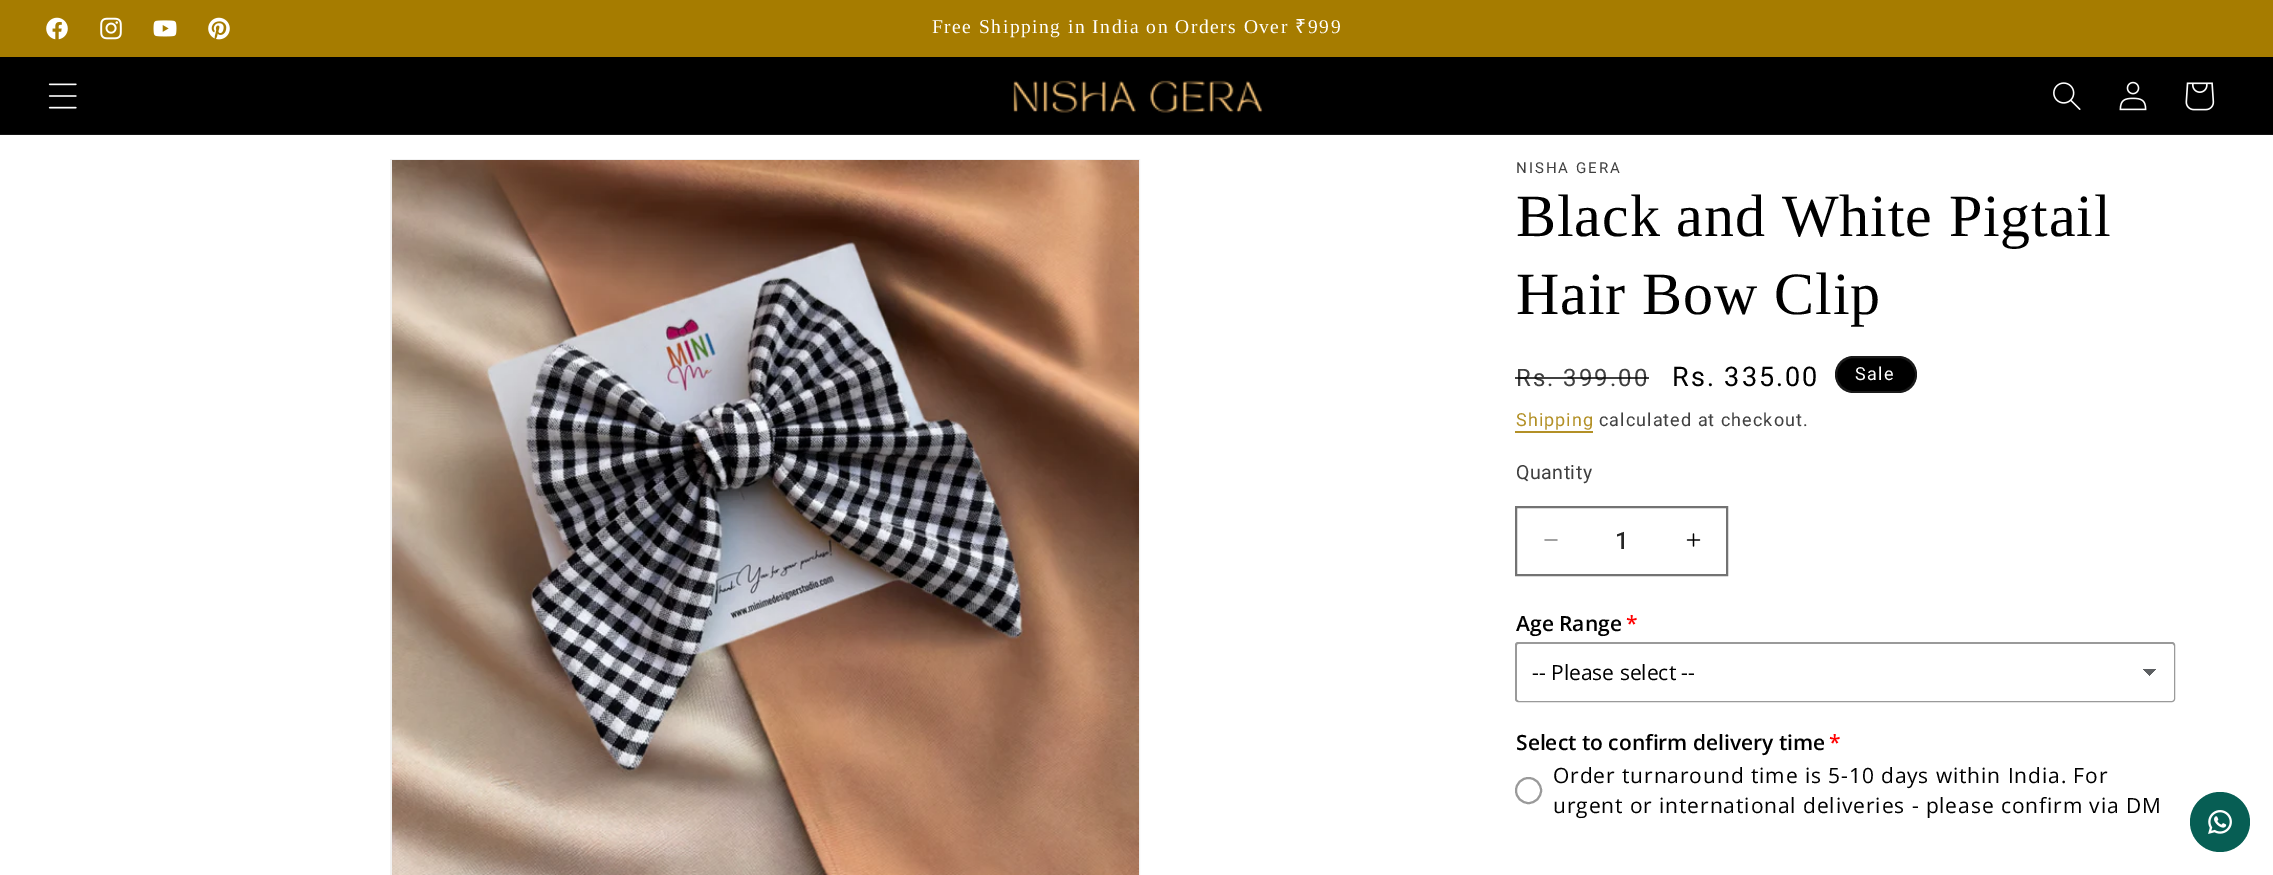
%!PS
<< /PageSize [2273 875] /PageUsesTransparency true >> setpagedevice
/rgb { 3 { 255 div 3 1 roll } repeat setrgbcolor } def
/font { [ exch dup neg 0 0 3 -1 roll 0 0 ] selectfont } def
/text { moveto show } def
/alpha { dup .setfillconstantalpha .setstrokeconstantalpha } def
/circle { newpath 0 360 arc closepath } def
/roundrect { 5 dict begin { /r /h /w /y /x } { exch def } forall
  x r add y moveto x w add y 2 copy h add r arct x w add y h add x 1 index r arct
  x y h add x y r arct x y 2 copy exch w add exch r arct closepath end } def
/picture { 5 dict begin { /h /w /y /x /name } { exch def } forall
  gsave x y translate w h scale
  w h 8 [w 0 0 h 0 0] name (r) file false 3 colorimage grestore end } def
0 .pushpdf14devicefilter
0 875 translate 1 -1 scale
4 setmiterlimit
255 255 255 rgb
0 0 2273 875 rectfill
166 124 0 rgb
0 0 2273 57 rectfill
(img_01.rgb) 46 17 22 23 picture
(img_02.rgb) 100 17 22 23 picture
(img_03.rgb) 153 20 24 17 picture
(img_04.rgb) 208 17 22 23 picture
0 0 0 rgb
0 57 2273 77 rectfill
20 20 20 rgb
0 134 2273 1 rectfill
(img_05.rgb) 48 83 29 26 picture
(img_06.rgb) 1013 80 250 33 picture
(img_07.rgb) 2053 82 28 28 picture
(img_08.rgb) 2119 81 28 30 picture
(img_09.rgb) 2185 82 30 29 picture
242 242 242 rgb
2 setlinewidth
391 160 748 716 rectstroke
(img_10.rgb) 392 160 747 715 picture
0 0 0 rgb
1835 356 82 37 18.5 roundrect fill
0.1 alpha
255 255 255 rgb
1836 357 80 35 17.5 roundrect stroke
1 alpha
179 144 38 rgb
1515 431 78 2 rectfill
(img_11.rgb) 1544 539 14 2 picture
(img_12.rgb) 1686 533 15 14 picture
115 115 115 rgb
1516 507 211 68 rectstroke
154 154 154 rgb
1516 643 658 58 2 roundrect stroke
255 255 255 rgb
1517 644 657 57 3 roundrect fill
gsave 2150 669 moveto 6 0 rlineto 0 8 rlineto -6 0 rlineto closepath clip newpath
<< /ShadingType 2 /ColorSpace /DeviceRGB /Coords [2150 668 2157 676] /Extend [true true] /Function << /FunctionType 3 /Domain [0 1] /Functions [<< /FunctionType 2 /Domain [0 1] /C0 [0.361 0.373 0.384] /C1 [0.361 0.373 0.384] /N 1 >> << /FunctionType 2 /Domain [0 1] /C0 [1 1 1] /C1 [1 1 1] /N 1 >>] /Bounds [0.5] /Encode [0 1 0 1] >> >> shfill grestore
gsave 2142 669 moveto 8 0 rlineto 0 7 rlineto -8 0 rlineto closepath clip newpath
<< /ShadingType 2 /ColorSpace /DeviceRGB /Coords [2142 676 2150 668] /Extend [true true] /Function << /FunctionType 3 /Domain [0 1] /Functions [<< /FunctionType 2 /Domain [0 1] /C0 [1 1 1] /C1 [1 1 1] /N 1 >> << /FunctionType 2 /Domain [0 1] /C0 [0.361 0.373 0.384] /C1 [0.361 0.373 0.384] /N 1 >>] /Bounds [0.5] /Encode [0 1 0 1] >> >> shfill grestore
154 154 154 rgb
1528.5 790.5 12.5 circle stroke
7 94 84 rgb
2220 822 30 circle fill
(img_13.rgb) 2208 810 24 24 picture
/LiberationSerif-Regular 19.5 font
255 255 255 rgb
932 33 moveto 1.5 0 (Free Shipping in India on Orders Over) ashow
/NotoSans-Regular 19.5 font
1295 33 moveto 1.5 0 (₹) ashow
/LiberationSerif-Regular 19.5 font
1308 33 moveto 1.5 0 (999) ashow
/Roboto-Regular 15 font
64 64 64 rgb
1516 173 moveto 2 0 (NISHA GERA) ashow
/LiberationSerif-Regular 60 font
0 0 0 rgb
1516 236 moveto 0.9 0 (Black and White Pigtail) ashow
1516 314 moveto 0.9 0 (Hair Bow Clip) ashow
/Roboto-Regular 24 font
64 64 64 rgb
1516 386 moveto 2 0 (Rs. 399.00) ashow
0.75 alpha
0 0 0 rgb
1515 377 134 2 rectfill
/Roboto-Regular 27 font
1 alpha
1672 386 moveto 2 0 (Rs. 335.00) ashow
/Roboto-Regular 18 font
255 255 255 rgb
1855 380 moveto 1.5 0 (Sale) ashow
179 144 38 rgb
1516 426 moveto 1.05 0 (Shipping) ashow
64 64 64 rgb
1599 426 moveto 1.05 0 (calculated at checkout.) ashow
/Roboto-Regular 19.5 font
1516 479 moveto 0.5 0 (Quantity) ashow
/Roboto-Medium 24 font
38 38 38 rgb
(1) 1615 549 text
/OpenSans-SemiBold 21 font
0 0 0 rgb
(Age Range) 1516 631 text
255 0 0 rgb
(*) 1626 631 text
/OpenSans-Regular 21 font
0 0 0 rgb
(-- Please select --) 1532 680 text
/OpenSans-SemiBold 21 font
(Select to confirm delivery time) 1516 750 text
255 0 0 rgb
(*) 1829 750 text
/OpenSans-Regular 21 font
0 0 0 rgb
1553 783 moveto 0.9 0 (Order turnaround time is 5-10 days within India. For) ashow
1553 813 moveto 0.9 0 (urgent or international deliveries - please confirm via DM) ashow
.poppdf14devicefilter showpage
